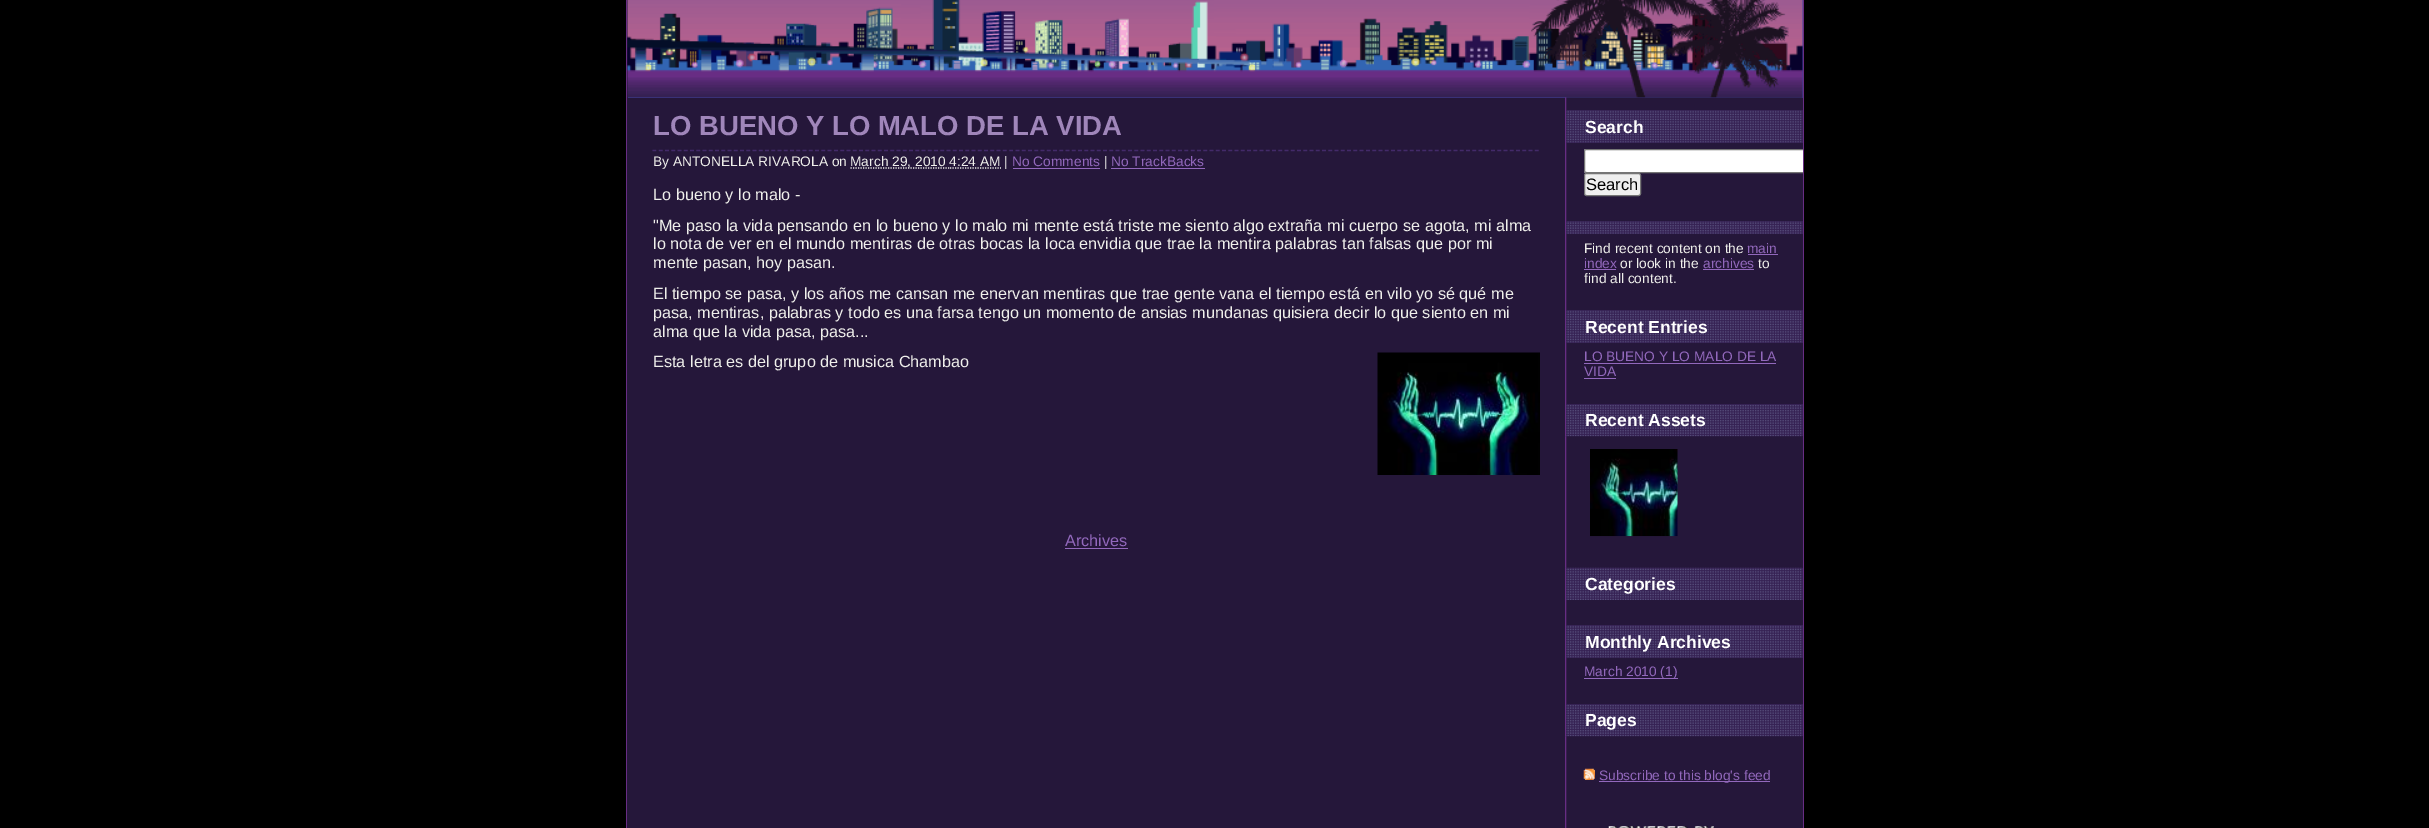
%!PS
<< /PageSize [2429 828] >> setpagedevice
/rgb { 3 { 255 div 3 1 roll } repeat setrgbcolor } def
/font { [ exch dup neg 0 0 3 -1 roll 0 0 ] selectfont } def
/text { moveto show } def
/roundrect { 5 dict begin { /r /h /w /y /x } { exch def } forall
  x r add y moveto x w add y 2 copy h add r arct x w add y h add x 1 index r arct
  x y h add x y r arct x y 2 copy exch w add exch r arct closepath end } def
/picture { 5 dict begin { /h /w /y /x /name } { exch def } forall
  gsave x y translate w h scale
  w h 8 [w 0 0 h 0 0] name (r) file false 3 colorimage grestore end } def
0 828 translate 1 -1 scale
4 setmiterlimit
0 0 0 rgb
0 0 2429 828 rectfill
37 23 58 rgb
627 0 1176 828 rectfill
104 45 132 rgb
1803 0 1 828 rectfill
626 0 1 828 rectfill
63 67 157 rgb
628 0 1175 98 rectfill
(img_01.rgb) 627 0 1176 98 picture
(img_02.rgb) 1565 97 238 731 picture
67 42 105 rgb
1.2 setlinewidth
[3.75 2.51] 0 setdash
652.5 150.5 moveto 887.5 0 rlineto stroke
239 239 235 rgb
[1.25 1.25] 0 setdash
850.5 168 moveto 99.5 0 rlineto stroke
950 168 moveto 51 0 rlineto stroke
146 104 188 rgb
1013 168 87 1 rectfill
1111 168 94 1 rectfill
(img_03.rgb) 1377 352 163 123 picture
1065 548 63 1 rectfill
54 34 84 rgb
1566 110 237 33 rectfill
(img_04.rgb) 1566 110 237 33 picture
255 255 255 rgb
1586.5 149 moveto 216.5 0 rlineto 0 24 rlineto -216.5 0 rlineto -1.5 0 -2.5 -1 -2.5 -2.5 rcurveto 0 -19 rlineto 0 -1.5 1 -2.5 2.5 -2.5 rcurveto closepath fill
gsave
1565 110 238 111 rectclip
118 118 118 rgb
1 setlinewidth
[] 0 setdash
1584.5 149.5 225 23 2 roundrect stroke
grestore
239 239 239 rgb
1584.5 173.5 56 22 2 roundrect gsave fill grestore
118 118 118 rgb
1 setlinewidth
[] 0 setdash
stroke
54 34 84 rgb
1566 221 237 13 rectfill
(img_05.rgb) 1566 221 237 13 picture
146 104 188 rgb
1748 254 30 1 rectfill
1584 269 32 1 rectfill
1703 269 51 1 rectfill
54 34 84 rgb
1566 310 237 33 rectfill
(img_04.rgb) 1566 310 237 33 picture
146 104 188 rgb
1584 363 192 1 rectfill
1584 378 32 1 rectfill
54 34 84 rgb
1566 404 237 32 rectfill
(img_06.rgb) 1565 405 238 32 picture
104 45 132 rgb
1565 404 1 32 rectfill
(img_07.rgb) 1590 449 88 88 picture
54 34 84 rgb
1802 568 1 32 rectfill
(img_08.rgb) 1565 567 238 33 picture
104 45 132 rgb
1565 568 1 32 rectfill
54 34 84 rgb
1566 625 237 33 rectfill
(img_09.rgb) 1566 625 237 33 picture
146 104 188 rgb
1584 678 94 1 rectfill
54 34 84 rgb
1566 704 237 32 rectfill
(img_06.rgb) 1565 705 238 32 picture
104 45 132 rgb
1565 704 1 32 rectfill
(img_10.rgb) 1583 768 12 12 picture
146 104 188 rgb
1599 781 171 1 rectfill
(img_11.rgb) 1608 826 106 2 picture
/LiberationSans-Bold 27.5 font
160 134 186 rgb
(LO BUENO Y LO MALO DE LA VIDA) 653 135 text
/LiberationSans-Regular 13.75 font
239 239 235 rgb
(By ANTONELLA RIVAROLA on) 653 166 text
(March 29, 2010 4:24 AM |) 850 166 text
146 104 188 rgb
(No Comments) 1012 166 text
239 239 235 rgb
(|) 1104 166 text
146 104 188 rgb
(No TrackBacks) 1111 166 text
/LiberationSans-Regular 16.25 font
239 239 235 rgb
(Lo bueno y lo malo -) 653 200 text
("Me paso la vida pensando en lo bueno y lo malo mi mente está triste me siento algo extraña mi cuerpo se agota, mi alma) 653 231 text
(lo nota de ver en el mundo mentiras de otras bocas la loca envidia que trae la mentira palabras tan falsas que por mi) 653 249 text
(mente pasan, hoy pasan.) 653 268 text
(El tiempo se pasa, y los años me cansan me enervan mentiras que trae gente vana el tiempo está en vilo yo sé qué me) 653 299 text
(pasa, mentiras, palabras y todo es una farsa tengo un momento de ansias mundanas quisiera decir lo que siento en mi) 653 318 text
(alma que la vida pasa, pasa...) 653 337 text
(Esta letra es del grupo de musica Chambao) 653 367 text
146 104 188 rgb
(Archives) 1065 546 text
/LiberationSans-Bold 17.5 font
255 255 255 rgb
(Search) 1585 133 text
/LiberationSans-Regular 16.5 font
0 0 0 rgb
(Search) 1586 190 text
/LiberationSans-Regular 13.75 font
239 239 235 rgb
(Find recent content on the) 1584 253 text
146 104 188 rgb
(main) 1747 253 text
(index) 1584 268 text
239 239 235 rgb
(or look in the) 1620 268 text
146 104 188 rgb
(archives) 1703 268 text
239 239 235 rgb
(to) 1758 268 text
(find all content.) 1584 283 text
/LiberationSans-Bold 17.5 font
255 255 255 rgb
(Recent Entries) 1585 333 text
/LiberationSans-Regular 13.75 font
146 104 188 rgb
(LO BUENO Y LO MALO DE LA) 1584 361 text
(VIDA) 1584 376 text
/LiberationSans-Bold 17.5 font
255 255 255 rgb
(Recent Assets) 1585 426 text
(Categories) 1585 590 text
(Monthly Archives) 1585 648 text
/LiberationSans-Regular 13.75 font
146 104 188 rgb
(March 2010 \(1\)) 1584 676 text
/LiberationSans-Bold 17.5 font
255 255 255 rgb
(Pages) 1585 726 text
/LiberationSans-Regular 13.75 font
146 104 188 rgb
(Subscribe to this blog's feed) 1599 780 text
showpage
